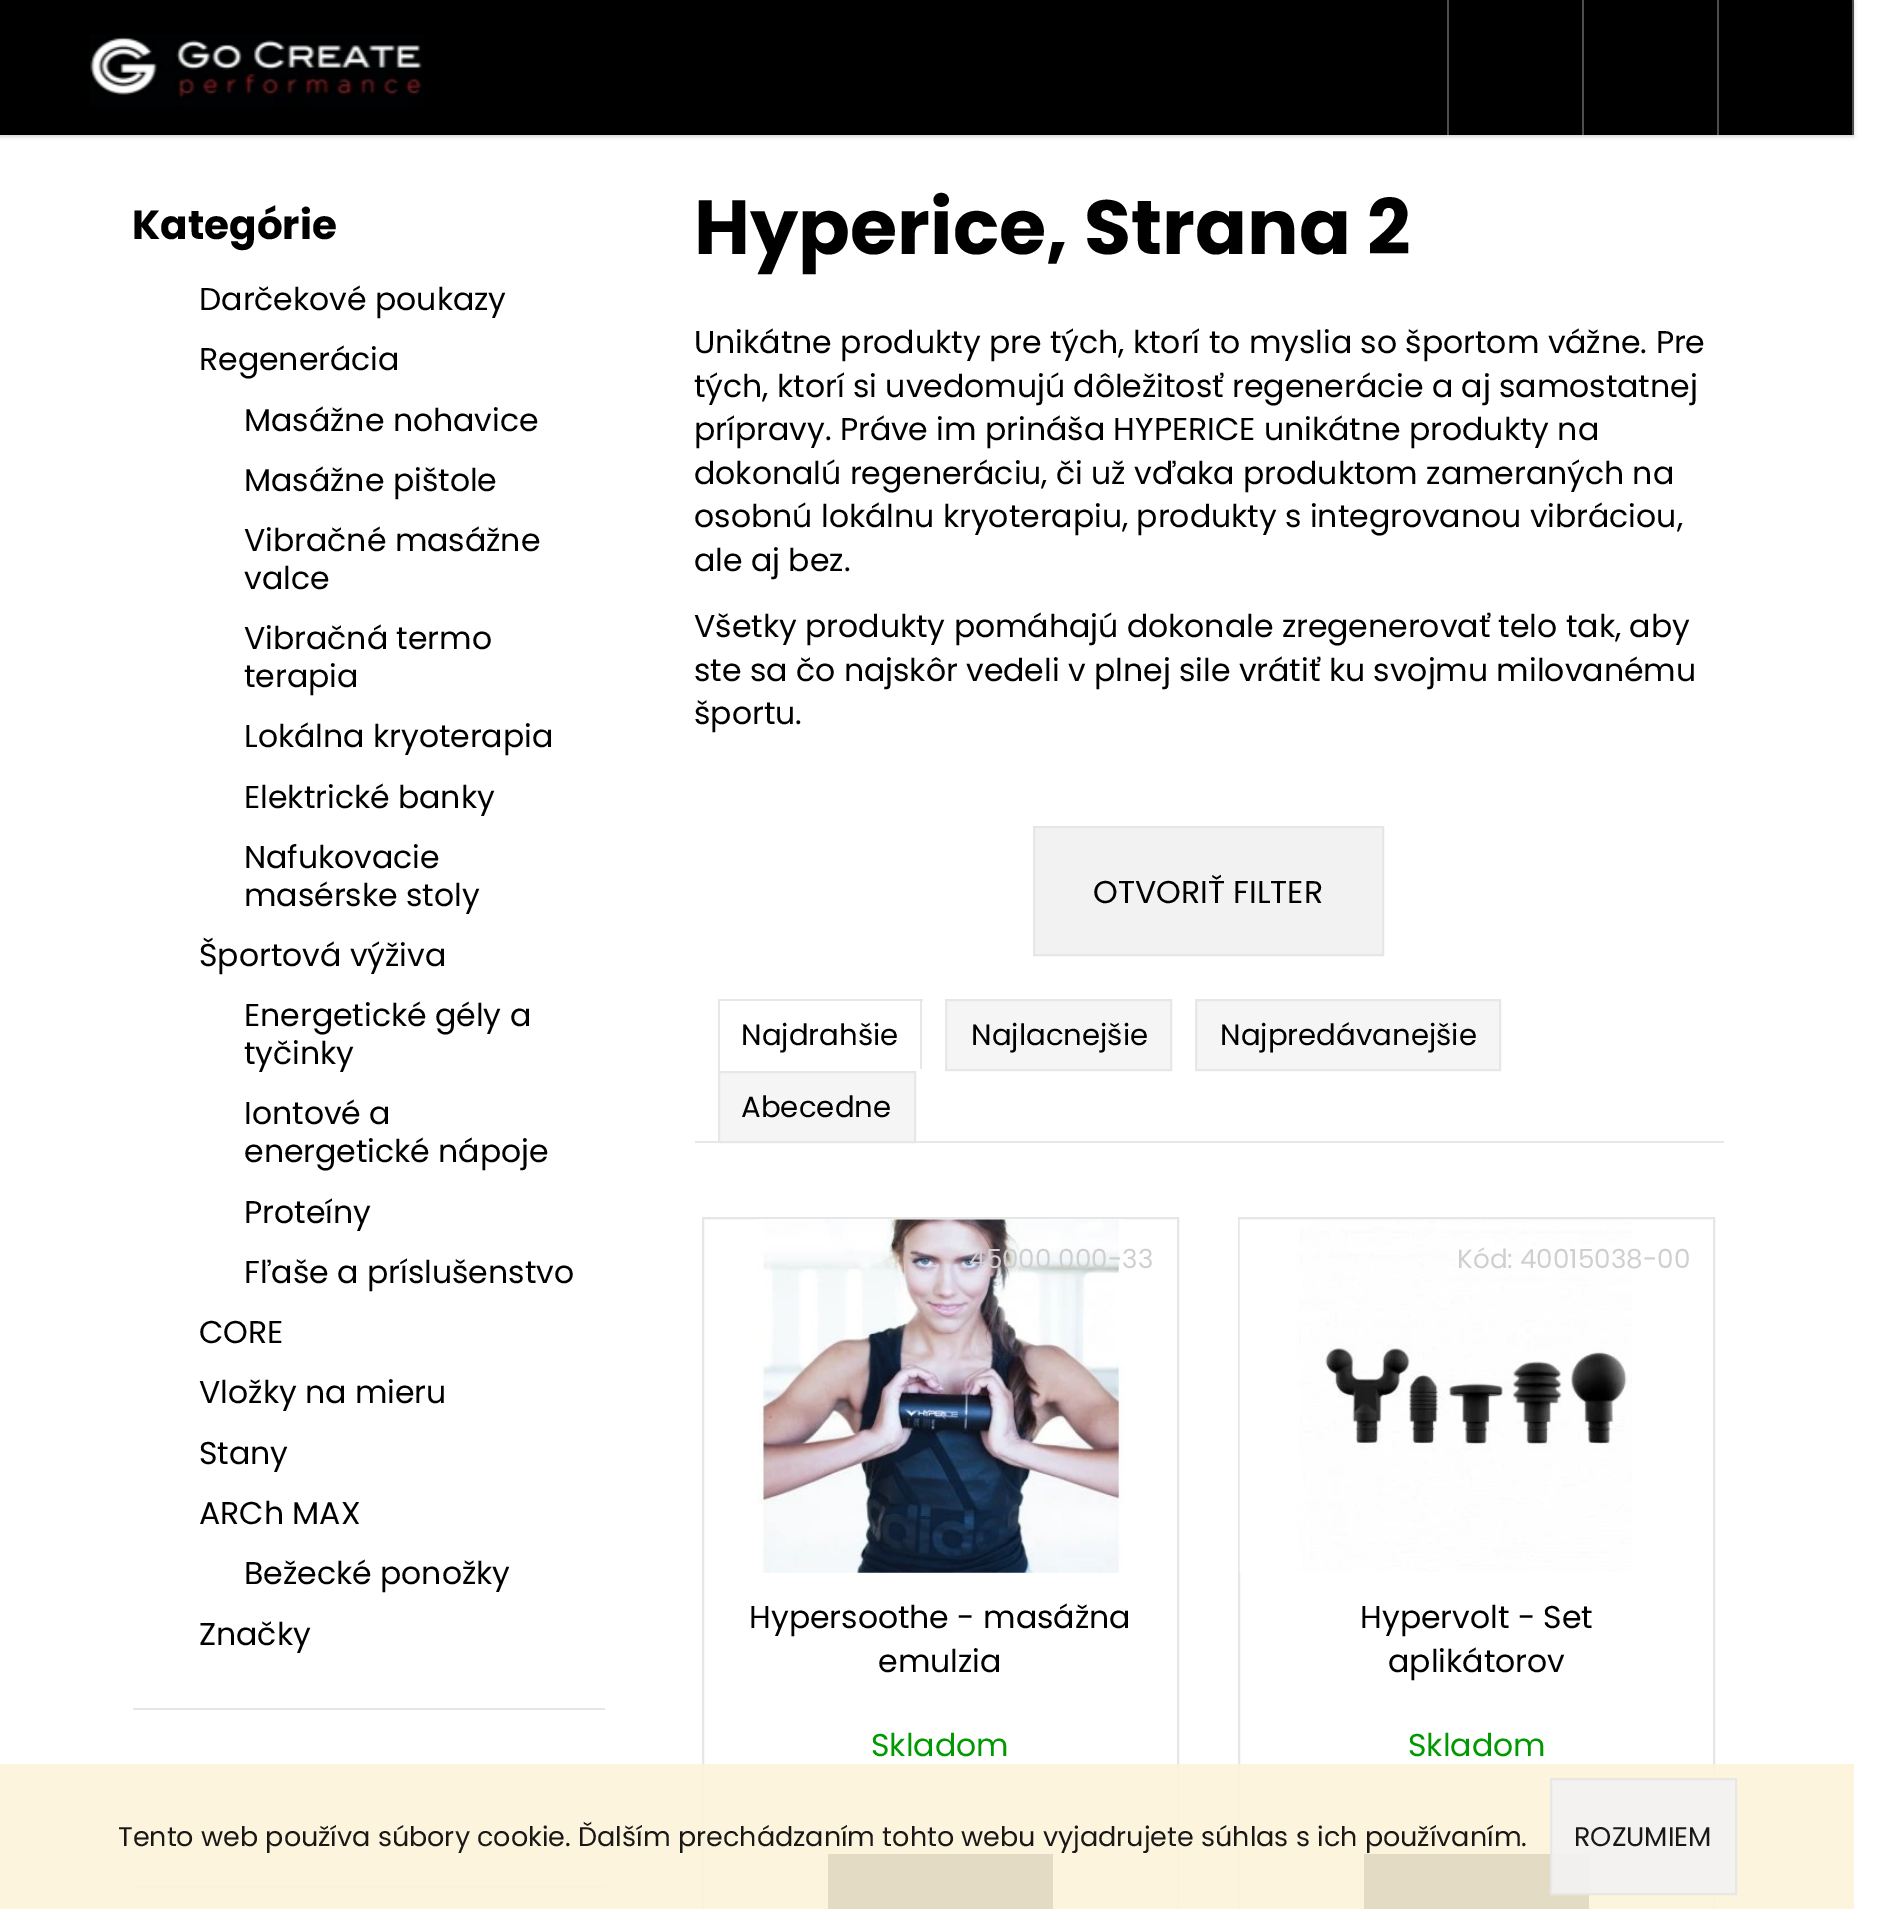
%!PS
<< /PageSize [1886 1909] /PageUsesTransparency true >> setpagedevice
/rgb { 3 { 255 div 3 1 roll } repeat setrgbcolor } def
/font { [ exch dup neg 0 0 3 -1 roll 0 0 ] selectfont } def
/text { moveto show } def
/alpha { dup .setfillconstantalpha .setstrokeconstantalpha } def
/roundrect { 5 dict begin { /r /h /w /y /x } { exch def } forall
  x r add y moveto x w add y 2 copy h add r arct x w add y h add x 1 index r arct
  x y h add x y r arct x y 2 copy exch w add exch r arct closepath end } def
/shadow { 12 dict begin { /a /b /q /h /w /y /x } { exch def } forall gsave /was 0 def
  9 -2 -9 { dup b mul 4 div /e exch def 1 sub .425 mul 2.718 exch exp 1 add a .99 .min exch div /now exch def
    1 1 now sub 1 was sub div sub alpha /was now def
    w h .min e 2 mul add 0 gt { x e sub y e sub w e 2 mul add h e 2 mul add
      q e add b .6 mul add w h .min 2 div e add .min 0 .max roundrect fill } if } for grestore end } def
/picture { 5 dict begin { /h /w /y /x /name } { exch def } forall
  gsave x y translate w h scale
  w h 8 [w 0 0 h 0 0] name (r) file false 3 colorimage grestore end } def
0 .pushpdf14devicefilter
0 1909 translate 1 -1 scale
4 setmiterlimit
255 255 255 rgb
0 0 1886 1909 rectfill
0 0 0 rgb
0 2 1854 135 0 2 0.16 shadow
0 0 1852 135 rectfill
(img_01.rgb) 89 34 335 73 picture
77 77 77 rgb
1852 0 2 135 rectfill
1447 0 2 135 rectfill
1582 0 2 135 rectfill
1717 0 2 135 rectfill
230 230 230 rgb
133 1708 472 2 rectfill
133 1886 472 2 rectfill
242 242 242 rgb
1034 827 moveto 349 0 rlineto 0 128 rlineto -349 0 rlineto closepath gsave fill grestore
230 230 230 rgb
2 setlinewidth
stroke
231 231 231 rgb
695 1141 1029 2 rectfill
718 999 205 2 rectfill
920 999 2 72 rectfill
255 255 255 rgb
920 1069 3 2 rectfill
231 231 231 rgb
718 999 2 72 rectfill
245 245 245 rgb
946 1000 moveto 225 0 rlineto 0 70 rlineto -225 0 rlineto closepath gsave fill grestore
231 231 231 rgb
stroke
245 245 245 rgb
1196 1000 moveto 304 0 rlineto 0 70 rlineto -304 0 rlineto closepath gsave fill grestore
231 231 231 rgb
stroke
245 245 245 rgb
719 1072 moveto 196 0 rlineto 0 70 rlineto -196 0 rlineto closepath gsave fill grestore
231 231 231 rgb
stroke
230 230 230 rgb
703 1218 475 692 rectstroke
(img_02.rgb) 758 1219 366 354 picture
0 0 0 rgb
828 1854 225 55 rectfill
230 230 230 rgb
1239 1218 475 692 rectstroke
(img_03.rgb) 1239 1220 393 353 picture
0 0 0 rgb
1364 1854 225 55 rectfill
0.9 alpha
253 243 218 rgb
0 1764 1854 145 rectfill
242 242 242 rgb
1550 1778 187 117 rectfill
230 230 230 rgb
1551 1779 185 115 rectstroke
/Poppins-Bold 40.5 font
1 alpha
0 0 0 rgb
(Kategórie) 132 239 text
/Poppins-Regular 31.5 font
(Darčekové poukazy) 199 310 text
(Regenerácia) 199 370 text
(Masážne nohavice) 244 431 text
(Masážne pištole) 244 491 text
(Vibračné masážne) 244 551 text
(valce) 244 589 text
(Vibračná termo) 244 649 text
(terapia) 244 687 text
(Lokálna kryoterapia) 244 747 text
(Elektrické banky) 244 808 text
(Nafukovacie) 244 868 text
(masérske stoly) 244 906 text
(Športová výživa) 199 966 text
(Energetické gély a) 244 1026 text
(tyčinky) 244 1064 text
(Iontové a) 244 1124 text
(energetické nápoje) 244 1162 text
(Proteíny) 244 1223 text
(Fľaše a príslušenstvo) 244 1283 text
(CORE) 199 1343 text
(Vložky na mieru) 199 1403 text
(Stany) 199 1464 text
(ARCh MAX) 199 1524 text
(Bežecké ponožky) 244 1584 text
(Značky) 199 1645 text
/Poppins-Bold 76.5 font
(Hyperice, Strana 2) 694 254 text
/Poppins-Regular 31.5 font
(Unikátne produkty pre tých, ktorí to myslia so športom vážne. Pre) 694 353 text
(tých, ktorí si uvedomujú dôležitosť regenerácie a aj samostatnej) 694 397 text
(prípravy. Práve im prináša HYPERICE unikátne produkty na) 694 440 text
(dokonalú regeneráciu, či už vďaka produktom zameraných na) 694 484 text
(osobnú lokálnu kryoterapiu, produkty s integrovanou vibráciou,) 694 527 text
(ale aj bez.) 694 571 text
(Všetky produkty pomáhajú dokonale zregenerovať telo tak, aby) 694 637 text
(ste sa čo najskôr vedeli v plnej sile vrátiť ku svojmu milovanému) 694 681 text
(športu.) 694 724 text
(OTVORIŤ FILTER) 1093 903 text
/Poppins-Regular 29.25 font
(Najdrahšie) 741 1045 text
(Najlacnejšie) 971 1045 text
(Najpredávanejšie) 1220 1045 text
(Abecedne) 741 1117 text
/Poppins-Regular 26.25 font
207 207 207 rgb
(45000 000-33) 969 1268 text
/Poppins-Regular 31.5 font
0 0 0 rgb
(Hypersoothe - masážna) 749 1628 text
(emulzia) 878 1672 text
0 153 1 rgb
(Skladom) 871 1756 text
/Poppins-Regular 26.25 font
207 207 207 rgb
(Kód: 40015038-00) 1457 1268 text
/Poppins-Regular 31.5 font
0 0 0 rgb
(Hypervolt - Set) 1360 1628 text
(aplikátorov) 1388 1672 text
0 153 1 rgb
(Skladom) 1408 1756 text
/Poppins-Regular 27 font
25 24 22 rgb
(Tento web používa súbory cookie. Ďalším prechádzaním tohto webu vyjadrujete súhlas s ich používaním.) 118 1846 text
(ROZUMIEM) 1574 1846 text
.poppdf14devicefilter showpage
